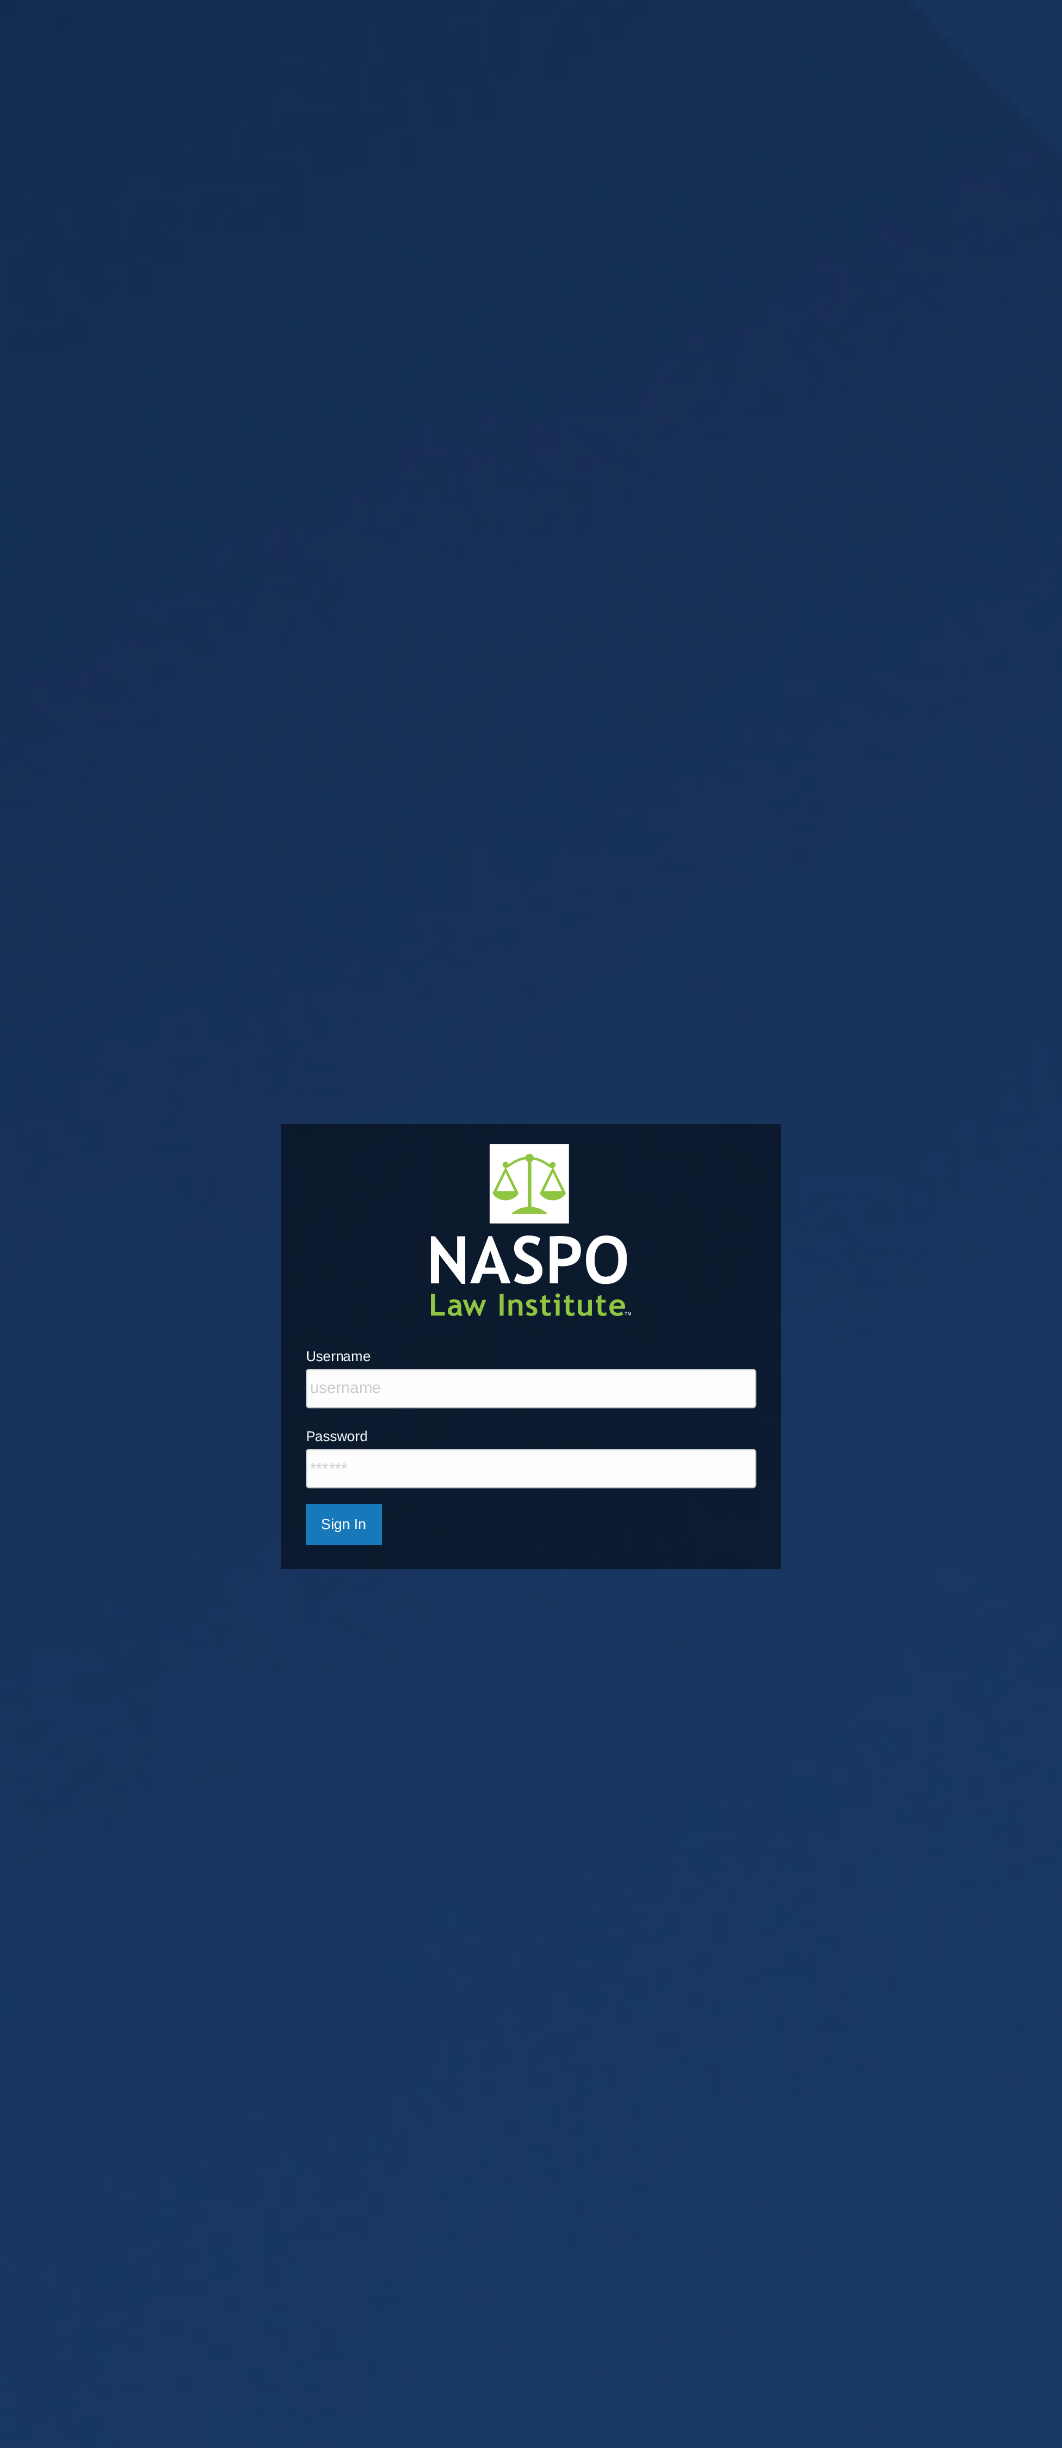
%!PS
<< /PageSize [1062 2448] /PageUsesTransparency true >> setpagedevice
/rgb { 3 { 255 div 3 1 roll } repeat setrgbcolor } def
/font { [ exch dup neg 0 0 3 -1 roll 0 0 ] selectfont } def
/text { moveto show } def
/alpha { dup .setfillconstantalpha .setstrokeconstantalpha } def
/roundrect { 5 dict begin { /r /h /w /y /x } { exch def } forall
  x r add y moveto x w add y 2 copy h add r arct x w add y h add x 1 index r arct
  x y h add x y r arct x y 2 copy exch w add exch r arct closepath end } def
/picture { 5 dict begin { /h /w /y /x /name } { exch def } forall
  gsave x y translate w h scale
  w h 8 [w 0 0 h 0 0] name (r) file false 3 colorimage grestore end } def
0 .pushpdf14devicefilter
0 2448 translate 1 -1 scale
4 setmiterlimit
255 255 255 rgb
0 0 1062 2448 rectfill
(img_01.rgb) 0 0 1062 2448 picture
0.5 alpha
0 0 0 rgb
281 1124 500 445 rectfill
1 alpha
(img_02.rgb) 431 1144 200 172 picture
254 254 254 rgb
306.5 1369.5 449 38 2.5 roundrect gsave fill grestore
204 204 204 rgb
stroke
254 254 254 rgb
306.5 1449.5 449 38 2.5 roundrect gsave fill grestore
204 204 204 rgb
stroke
23 121 186 rgb
306 1504 76 41 rectfill
/LiberationSans-Regular 14 font
255 255 255 rgb
(Username) 306 1361 text
/LiberationSans-Regular 16 font
202 202 202 rgb
(username) 310 1393 text
/LiberationSans-Regular 14 font
255 255 255 rgb
(Password) 306 1441 text
/LiberationSans-Regular 16 font
202 202 202 rgb
(******) 310 1474 text
/LiberationSans-Regular 14.5 font
255 255 255 rgb
(Sign In) 321 1529 text
.poppdf14devicefilter showpage
